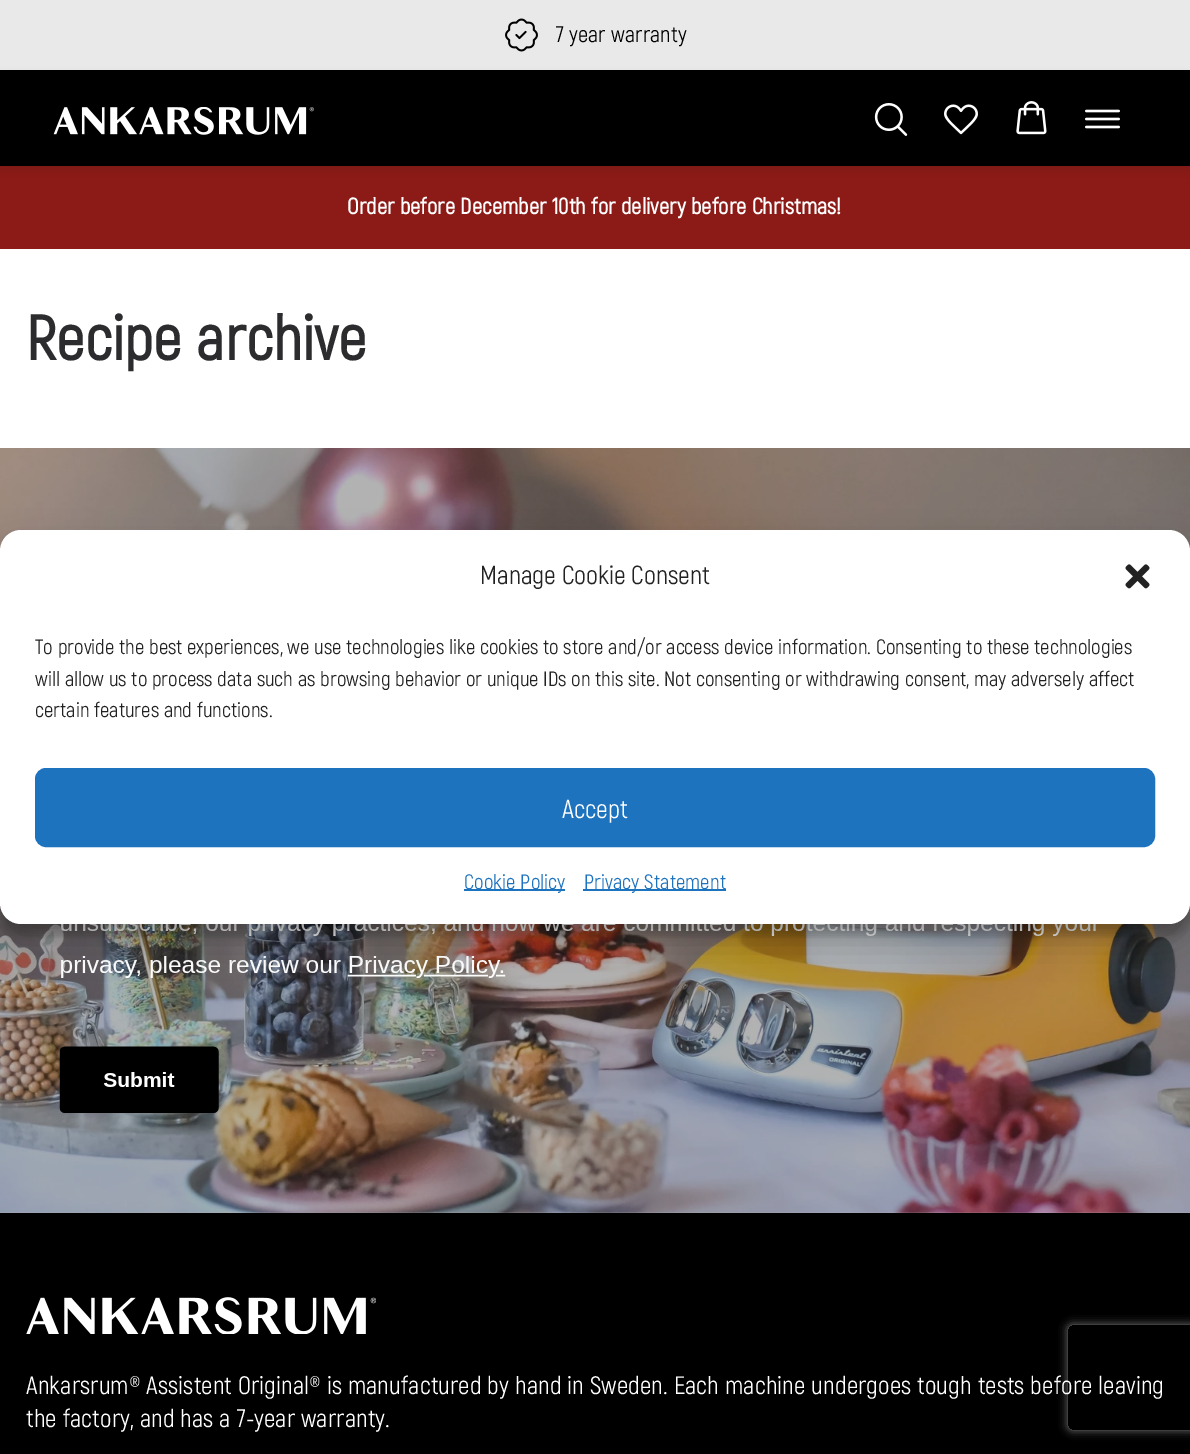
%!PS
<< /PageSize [1190 1454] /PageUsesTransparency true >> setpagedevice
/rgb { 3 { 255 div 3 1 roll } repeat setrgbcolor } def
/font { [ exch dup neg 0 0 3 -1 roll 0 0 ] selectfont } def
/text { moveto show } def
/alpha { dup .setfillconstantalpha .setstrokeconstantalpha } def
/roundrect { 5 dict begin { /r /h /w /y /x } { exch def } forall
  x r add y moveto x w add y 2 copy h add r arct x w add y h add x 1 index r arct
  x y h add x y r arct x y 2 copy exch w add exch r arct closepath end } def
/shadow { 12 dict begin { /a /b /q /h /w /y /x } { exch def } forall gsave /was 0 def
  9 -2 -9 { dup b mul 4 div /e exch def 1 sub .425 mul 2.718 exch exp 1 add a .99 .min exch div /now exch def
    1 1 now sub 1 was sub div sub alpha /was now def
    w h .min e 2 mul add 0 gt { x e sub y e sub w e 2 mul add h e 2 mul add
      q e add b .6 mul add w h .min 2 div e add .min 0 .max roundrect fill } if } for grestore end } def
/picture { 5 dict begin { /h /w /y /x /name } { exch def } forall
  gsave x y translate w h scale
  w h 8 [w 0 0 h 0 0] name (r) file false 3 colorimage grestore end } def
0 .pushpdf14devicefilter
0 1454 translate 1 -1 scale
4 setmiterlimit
255 255 255 rgb
0 0 1190 1454 rectfill
233 233 233 rgb
0 0 1190 70 rectfill
(img_01.rgb) 505 18 33 34 picture
140 26 22 rgb
0 166 1190 83 rectfill
0 0 0 rgb
0 74 1190 96 0 3.5 0.07 shadow
0 70 1190 96 rectfill
(img_02.rgb) 53 107 261 28 picture
(img_03.rgb) 874 103 34 33 picture
(img_04.rgb) 944 104 34 31 picture
(img_05.rgb) 1016 101 31 34 picture
(img_06.rgb) 1085 109 35 20 picture
(img_07.rgb) 0 448 1190 765 picture
(img_08.rgb) 0 1212 1190 1 picture
(img_09.rgb) 59 924 1037 189 picture
0 541 1190 394 21 5 0.23 shadow
0 548 1190 394 21 17.5 0.19 shadow
255 255 255 rgb
0 530 1190 394 21 roundrect fill
(img_10.rgb) 1125 564 25 25 picture
30 115 190 rgb
36 769 1118 77 10 roundrect gsave fill grestore
2 setlinewidth
stroke
464 889 101 2 rectfill
583 889 143 2 rectfill
0 0 0 rgb
0 1213 1190 241 rectfill
gsave
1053 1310 moveto 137 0 rlineto 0 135 rlineto -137 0 rlineto closepath 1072 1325 moveto 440 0 rlineto 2 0 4 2 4 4 rcurveto 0 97 rlineto 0 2 -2 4 -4 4 rcurveto -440 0 rlineto -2 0 -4 -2 -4 -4 rcurveto 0 -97 rlineto 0 -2 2 -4 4 -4 rcurveto closepath eoclip newpath
128 128 128 rgb
1068 1325 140 105 4 4.5 1 shadow
grestore
(img_11.rgb) 26 1297 350 37 picture
/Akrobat-Regular 22.75 font
556 42 moveto 0.1 0 (7 year warranty) ashow
/Akrobat-Bold 22.75 font
255 255 255 rgb
347 214 moveto 0.1 0 (Order before December 10th for delivery before Christmas!) ashow
/Akrobat-Bold 63.25 font
44 44 46 rgb
26 360 moveto 0.25 0 (Recipe archive) ashow
/Akrobat-Regular 26.25 font
34 34 34 rgb
(Manage Cookie Consent) 480 584 text
/Akrobat-Regular 21 font
(To provide the best experiences, we use technologies like cookies to store and/or access device information. Consenting to these technologies) 35 654 text
(will allow us to process data such as browsing behavior or unique IDs on this site. Not consenting or withdrawing consent, may adversely affect) 35 686 text
(certain features and functions.) 35 717 text
/Akrobat-Regular 26.25 font
255 255 255 rgb
(Accept) 562 818 text
/Akrobat-Regular 21 font
30 115 190 rgb
464 889 moveto 0.1 0 (Cookie Policy) ashow
584 889 moveto 0.1 0 (Privacy Statement) ashow
/Akrobat-Regular 25.4 font
255 255 255 rgb
26 1394 moveto 0.13 0 (Ankarsrum® Assistent Original® is manufactured by hand in Sweden. Each machine undergoes tough tests before leaving) ashow
26 1427 moveto 0.13 0 (the factory, and has a 7-year warranty.) ashow
.poppdf14devicefilter showpage
